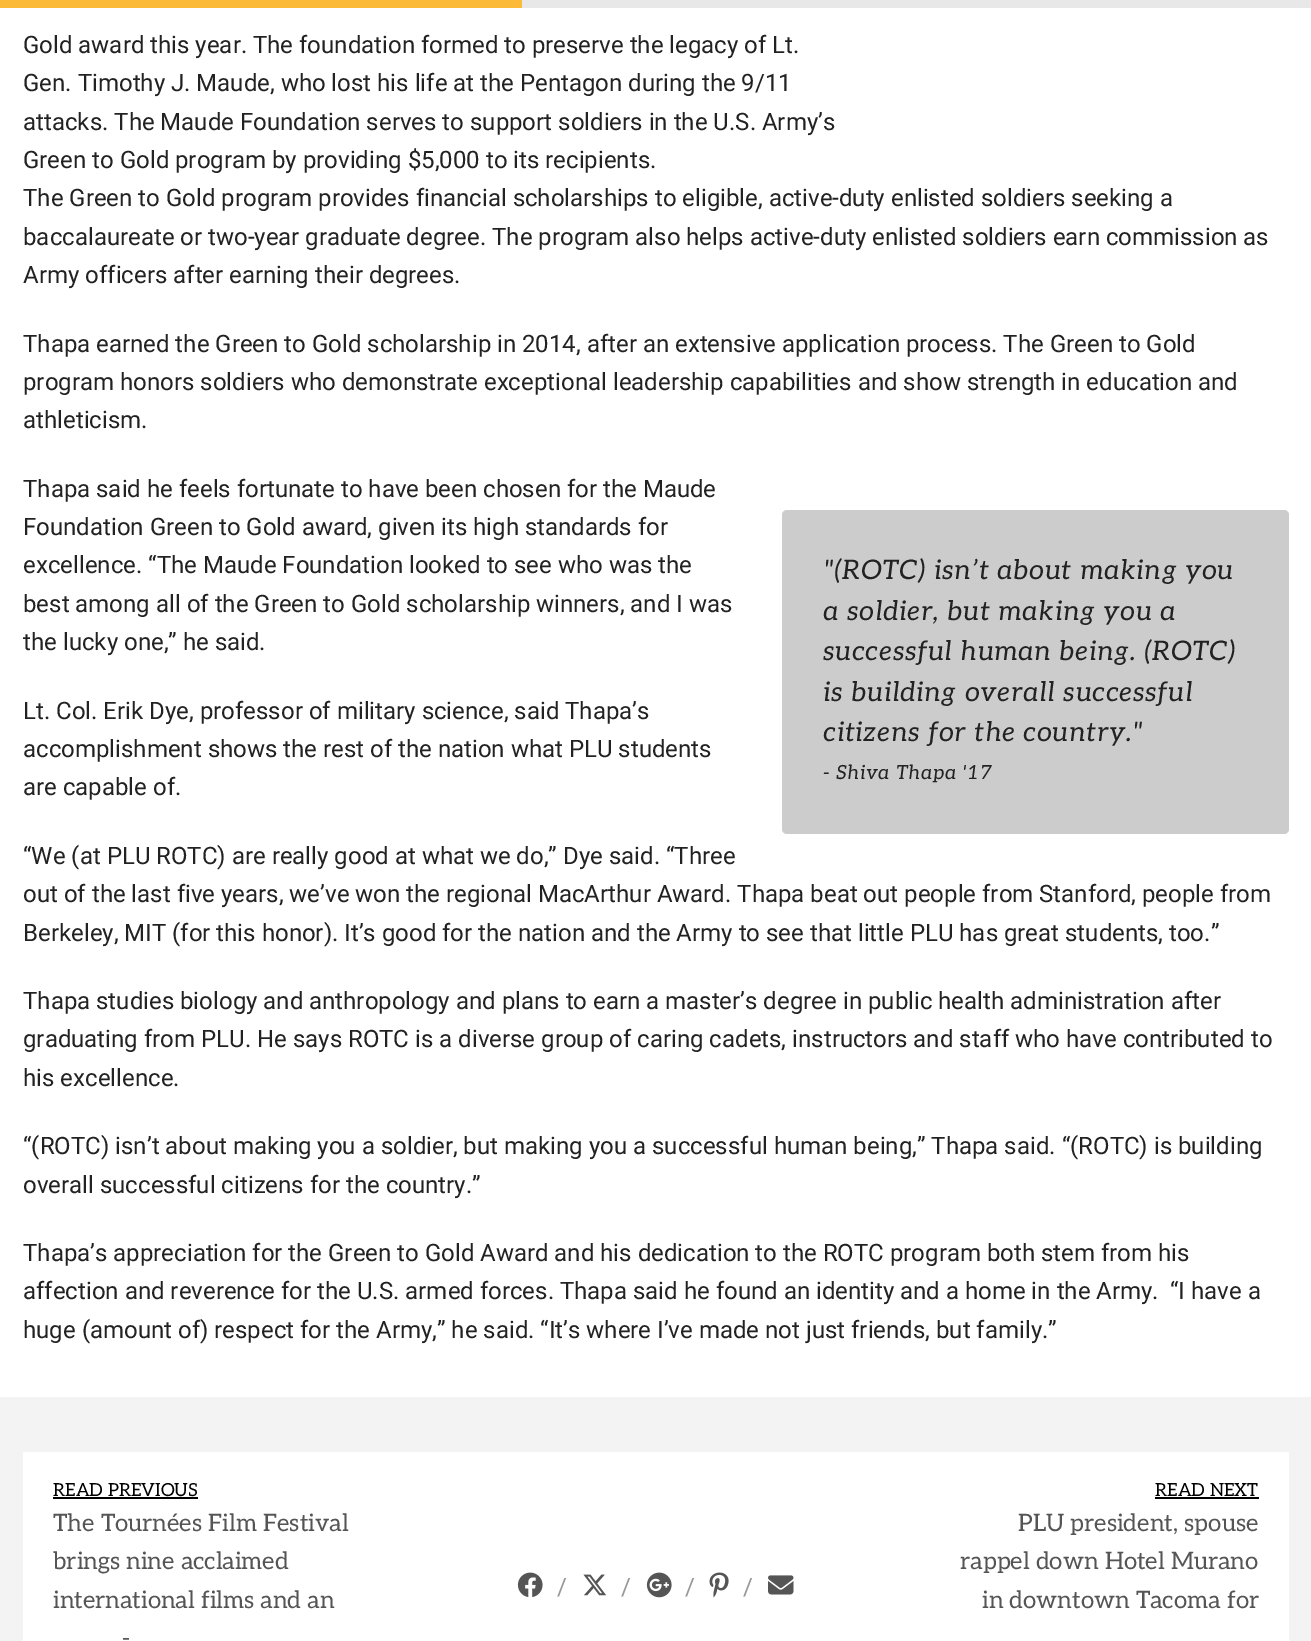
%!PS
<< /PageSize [1311 1641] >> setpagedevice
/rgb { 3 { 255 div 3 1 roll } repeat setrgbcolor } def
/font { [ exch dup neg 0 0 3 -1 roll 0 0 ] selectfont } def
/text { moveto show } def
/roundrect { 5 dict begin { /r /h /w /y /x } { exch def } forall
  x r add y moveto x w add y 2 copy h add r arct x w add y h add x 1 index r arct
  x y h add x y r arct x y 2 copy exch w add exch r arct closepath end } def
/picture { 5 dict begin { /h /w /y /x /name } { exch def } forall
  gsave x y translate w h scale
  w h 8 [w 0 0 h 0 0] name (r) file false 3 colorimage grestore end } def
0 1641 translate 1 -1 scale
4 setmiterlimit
255 255 255 rgb
0 0 1311 1641 rectfill
251 186 55 rgb
0 0 522 8 rectfill
232 232 232 rgb
522 0 789 8 rectfill
204 204 204 rgb
782 510 507 324 5 roundrect fill
243 243 243 rgb
0 1397 1311 244 rectfill
255 255 255 rgb
23 1452 1266 189 rectfill
0 0 0 rgb
53 1497 145 2 rectfill
(img_01.rgb) 517 1572 26 26 picture
(img_02.rgb) 583 1574 24 22 picture
(img_03.rgb) 646 1572 26 26 picture
(img_04.rgb) 709 1572 20 26 picture
(img_05.rgb) 768 1575 26 20 picture
1155 1497 104 2 rectfill
/Roboto-Regular 24 font
34 34 34 rgb
(Gold award this year. The foundation formed to preserve the legacy of Lt.) 23 53 text
(Gen. Timothy J. Maude, who lost his life at the Pentagon during the 9/11) 23 91 text
(attacks. The Maude Foundation serves to support soldiers in the U.S. Army’s) 23 130 text
(Green to Gold program by providing $5,000 to its recipients.) 23 168 text
(The Green to Gold program provides financial scholarships to eligible, active-duty enlisted soldiers seeking a) 23 206 text
(baccalaureate or two-year graduate degree. The program also helps active-duty enlisted soldiers earn commission as) 23 245 text
(Army officers after earning their degrees.) 23 283 text
(Thapa earned the Green to Gold scholarship in 2014, after an extensive application process. The Green to Gold) 23 352 text
(program honors soldiers who demonstrate exceptional leadership capabilities and show strength in education and) 23 390 text
(athleticism.) 23 428 text
(Thapa said he feels fortunate to have been chosen for the Maude) 23 497 text
(Foundation Green to Gold award, given its high standards for) 23 535 text
(excellence. “The Maude Foundation looked to see who was the) 23 573 text
(best among all of the Green to Gold scholarship winners, and I was) 23 612 text
(the lucky one,” he said.) 23 650 text
/Aleo-Italic 27 font
823 579 moveto 0.75 0 ("\(ROTC\) isn’t about making you) ashow
823 620 moveto 0.75 0 (a soldier, but making you a) ashow
823 660 moveto 0.75 0 (successful human being. \(ROTC\)) ashow
823 701 moveto 0.75 0 (is building overall successful) ashow
823 741 moveto 0.75 0 (citizens for the country.") ashow
/Aleo-Italic 19.5 font
823 779 moveto 0.75 0 (- Shiva Thapa '17) ashow
/Roboto-Regular 24 font
(Lt. Col. Erik Dye, professor of military science, said Thapa’s) 23 719 text
(accomplishment shows the rest of the nation what PLU students) 23 757 text
(are capable of.) 23 795 text
(“We \(at PLU ROTC\) are really good at what we do,” Dye said. “Three) 23 864 text
(out of the last five years, we’ve won the regional MacArthur Award. Thapa beat out people from Stanford, people from) 23 902 text
(Berkeley, MIT \(for this honor\). It’s good for the nation and the Army to see that little PLU has great students, too.”) 23 941 text
(Thapa studies biology and anthropology and plans to earn a master’s degree in public health administration after) 23 1009 text
(graduating from PLU. He says ROTC is a diverse group of caring cadets, instructors and staff who have contributed to) 23 1047 text
(his excellence.) 23 1086 text
(“\(ROTC\) isn’t about making you a soldier, but making you a successful human being,” Thapa said. “\(ROTC\) is building) 23 1154 text
(overall successful citizens for the country.”) 23 1193 text
(Thapa’s appreciation for the Green to Gold Award and his dedication to the ROTC program both stem from his) 23 1261 text
(affection and reverence for the U.S. armed forces. Thapa said he found an identity and a home in the Army.) 23 1299 text
(“I have a) 1170 1299 text
(huge \(amount of\) respect for the Army,” he said. “It’s where I’ve made not just friends, but family.”) 23 1338 text
/Aleo-Regular 18 font
0 0 0 rgb
(READ PREVIOUS) 53 1496 text
/Aleo-Regular 24 font
85 85 85 rgb
(The Tournées Film Festival) 53 1531 text
(brings nine acclaimed) 53 1569 text
(international films and an) 53 1608 text
(-) 122 1646 text
/Roboto-Regular 24 font
153 153 153 rgb
(/) 557 1595 text
(/) 621 1595 text
(/) 685 1595 text
(/) 743 1595 text
/Aleo-Regular 18 font
0 0 0 rgb
(READ NEXT) 1155 1496 text
/Aleo-Regular 24 font
85 85 85 rgb
(PLU president, spouse) 1018 1531 text
(rappel down Hotel Murano) 960 1569 text
(in downtown Tacoma for) 982 1608 text
showpage
